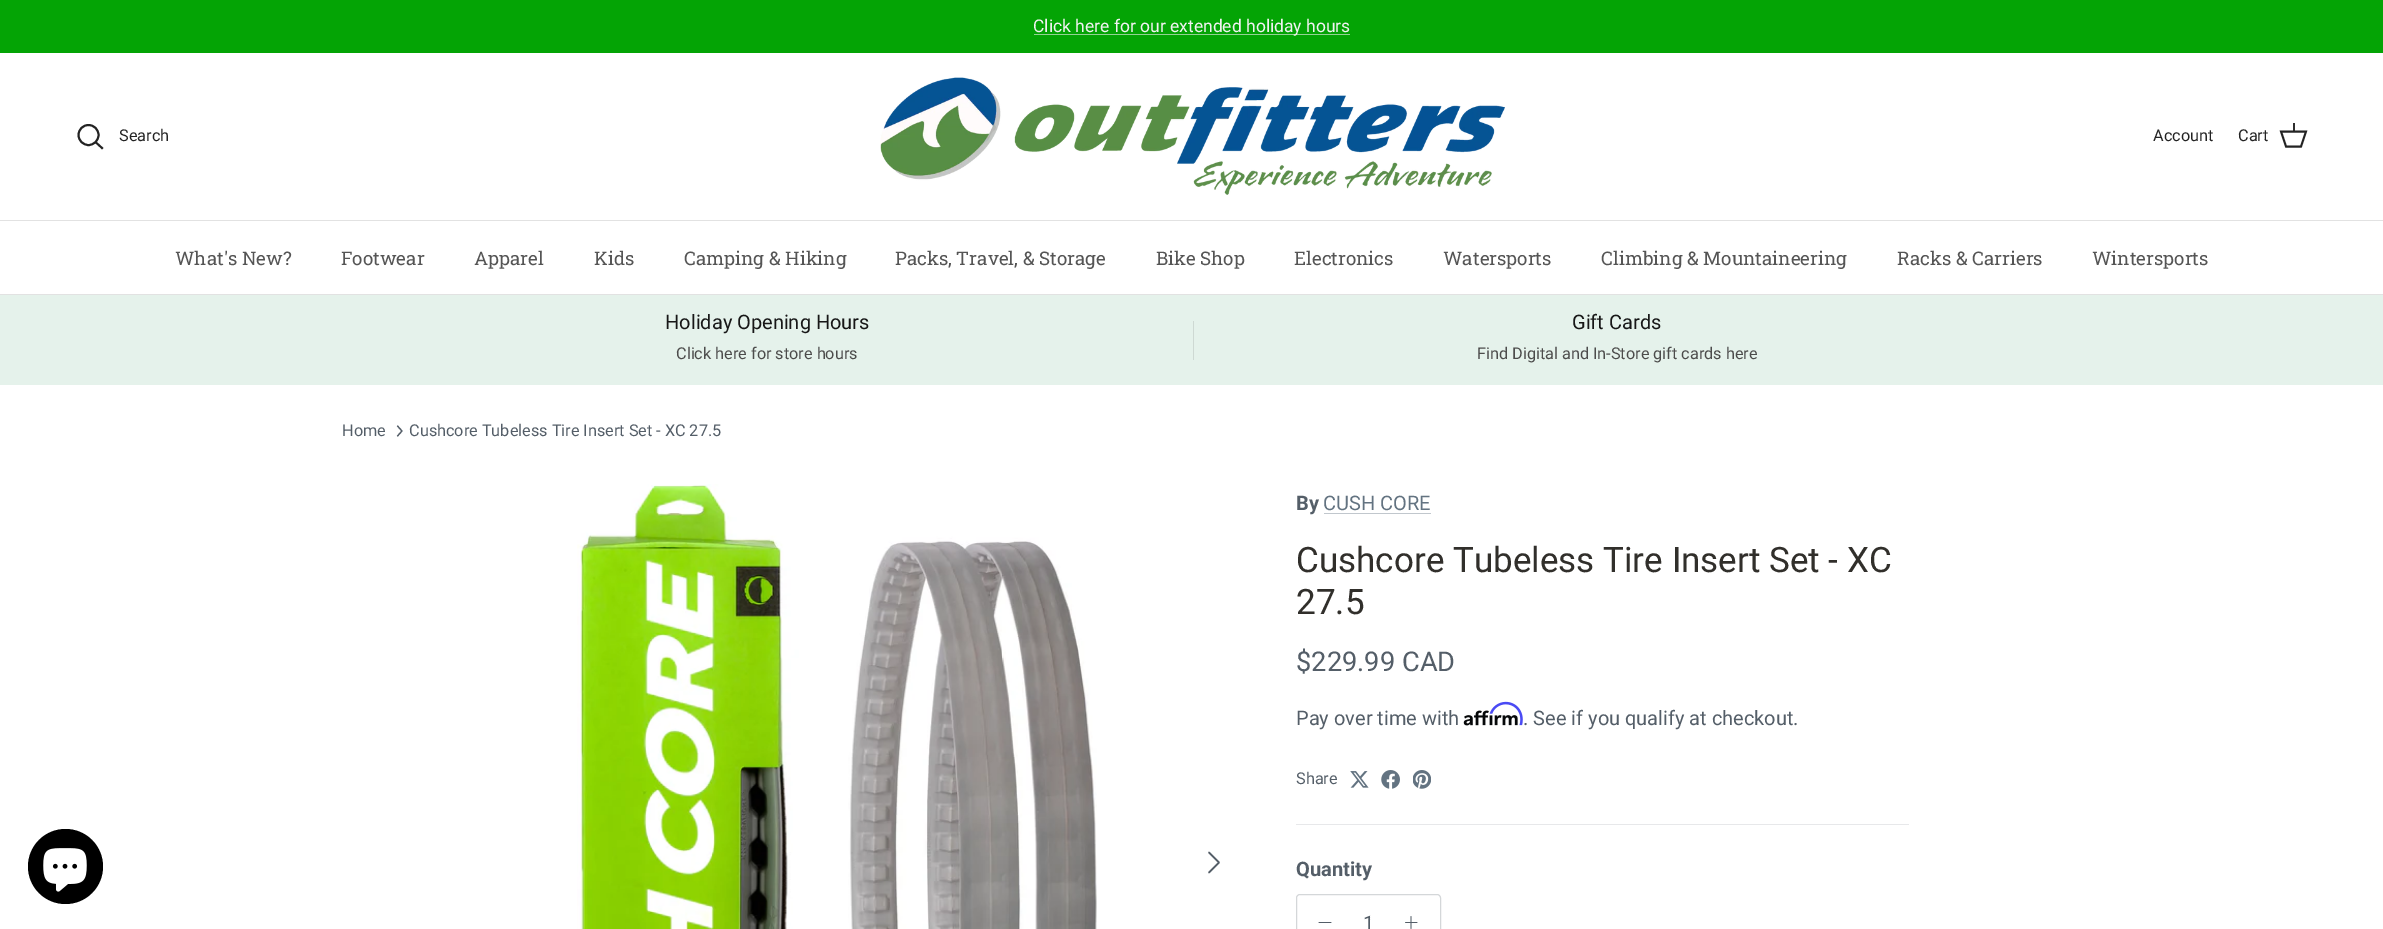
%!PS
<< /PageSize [2383 929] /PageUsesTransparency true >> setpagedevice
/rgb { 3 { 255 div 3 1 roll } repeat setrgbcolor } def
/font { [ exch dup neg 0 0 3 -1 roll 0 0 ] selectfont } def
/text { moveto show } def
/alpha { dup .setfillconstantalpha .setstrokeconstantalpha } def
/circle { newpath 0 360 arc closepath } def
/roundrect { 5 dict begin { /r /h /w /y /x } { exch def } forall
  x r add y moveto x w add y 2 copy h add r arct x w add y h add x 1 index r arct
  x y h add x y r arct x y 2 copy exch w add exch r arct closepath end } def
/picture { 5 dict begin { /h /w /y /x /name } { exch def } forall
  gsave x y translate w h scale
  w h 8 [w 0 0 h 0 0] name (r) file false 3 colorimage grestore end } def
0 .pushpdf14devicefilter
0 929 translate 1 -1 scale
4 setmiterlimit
255 255 255 rgb
0 0 2383 929 rectfill
4 164 5 rgb
0 0 2383 53 rectfill
147 211 147 rgb
1034 34 316 1 rectfill
226 226 226 rgb
0 220 2383 1 rectfill
35 35 35 rgb
1.9 setlinewidth
88.5 135 10 circle stroke
2 setlinecap
96 142.5 moveto 6 5.5 rlineto stroke
(img_01.rgb) 880 77 625 118 picture
0 setlinecap
2281 131.5 moveto 25 0 rlineto -5 15 rlineto -15 0 rlineto closepath stroke
0.95 alpha
2293 123 2 9 rectfill
1 alpha
226 226 226 rgb
0 294 2383 1 rectfill
229 242 235 rgb
0 295 2383 90 rectfill
206 217 211 rgb
1193 321 1 39 rectfill
0 0 0 rgb
65.5 866.5 37.5 circle fill
(img_02.rgb) 43 848 44 44 picture
84 94 104 rgb
1.2 setlinewidth
1 setlinecap
1 setlinejoin
397.5 436 moveto 4.5 -5 rlineto -4.5 -5 rlineto stroke
(img_03.rgb) 577 484 520 445 picture
1.7 setlinewidth
1209 872.5 moveto 10 -10 rlineto -10 -10 rlineto stroke
193 199 205 rgb
1324 513 107 1 rectfill
(img_05.rgb) 1463 710 55 16 picture
(img_04.rgb) 1489 701 34 25 picture
(img_06.rgb) 1350 771 19 17 picture
(img_07.rgb) 1381 770 19 19 picture
(img_08.rgb) 1413 770 18 19 picture
231 232 234 rgb
1296 824 613 1 rectfill
212 215 217 rgb
1 setlinewidth
0 setlinecap
0 setlinejoin
1296.5 894.5 144 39 3.5 roundrect stroke
84 94 104 rgb
0.8 setlinewidth
1 setlinecap
1 setlinejoin
1319 922.5 moveto 12 0 rlineto stroke
1411 916.5 moveto 0 12 rlineto 1405.5 922.5 moveto 11.5 0 rlineto stroke
/Roboto-Regular 17.5 font
242 242 242 rgb
(Click here for our extended holiday hours) 1033 32 text
/Roboto-Regular 16.25 font
35 35 35 rgb
(Search) 119 141 text
(Account) 2153 141 text
(Cart) 2238 141 text
/RobotoSlab-Regular 18.75 font
85 85 85 rgb
(What's New?) 175 265 text
(Footwear) 341 265 text
(Apparel) 474 265 text
(Kids) 594 265 text
(Camping & Hiking) 684 265 text
(Packs, Travel, & Storage) 895 265 text
(Bike Shop) 1156 265 text
(Electronics) 1294 265 text
(Watersports) 1443 265 text
(Climbing & Mountaineering) 1601 265 text
(Racks & Carriers) 1897 265 text
(Wintersports) 2092 265 text
/Roboto-Regular 20 font
23 23 23 rgb
(Holiday Opening Hours) 665 329 text
/Roboto-Regular 16.25 font
76 76 75 rgb
(Click here for store hours) 676 359 text
/Roboto-Regular 20 font
23 23 23 rgb
(Gift Cards) 1572 329 text
/Roboto-Regular 16.25 font
76 76 75 rgb
(Find Digital and In-Store gift cards here) 1477 359 text
84 94 104 rgb
(Home) 342 436 text
(Cushcore Tubeless Tire Insert Set - XC 27.5) 409 436 text
/Roboto-Bold 20 font
(By) 1296 510 text
/Roboto-Regular 20 font
99 115 129 rgb
(CUSH CORE) 1323 510 text
/Roboto-Regular 35 font
49 47 43 rgb
(Cushcore Tubeless Tire Insert Set - XC) 1296 572 text
(27.5) 1296 614 text
/Roboto-Regular 27.25 font
84 94 104 rgb
($229.99 CAD) 1296 671 text
/Roboto-Regular 20 font
(Pay over time with) 1296 725 text
(. See if you qualify at checkout.) 1523 725 text
/Roboto-Regular 16.25 font
(Share) 1296 784 text
/Roboto-Bold 20 font
(Quantity) 1296 876 text
/Roboto-Regular 20 font
(1) 1363 930 text
.poppdf14devicefilter showpage
